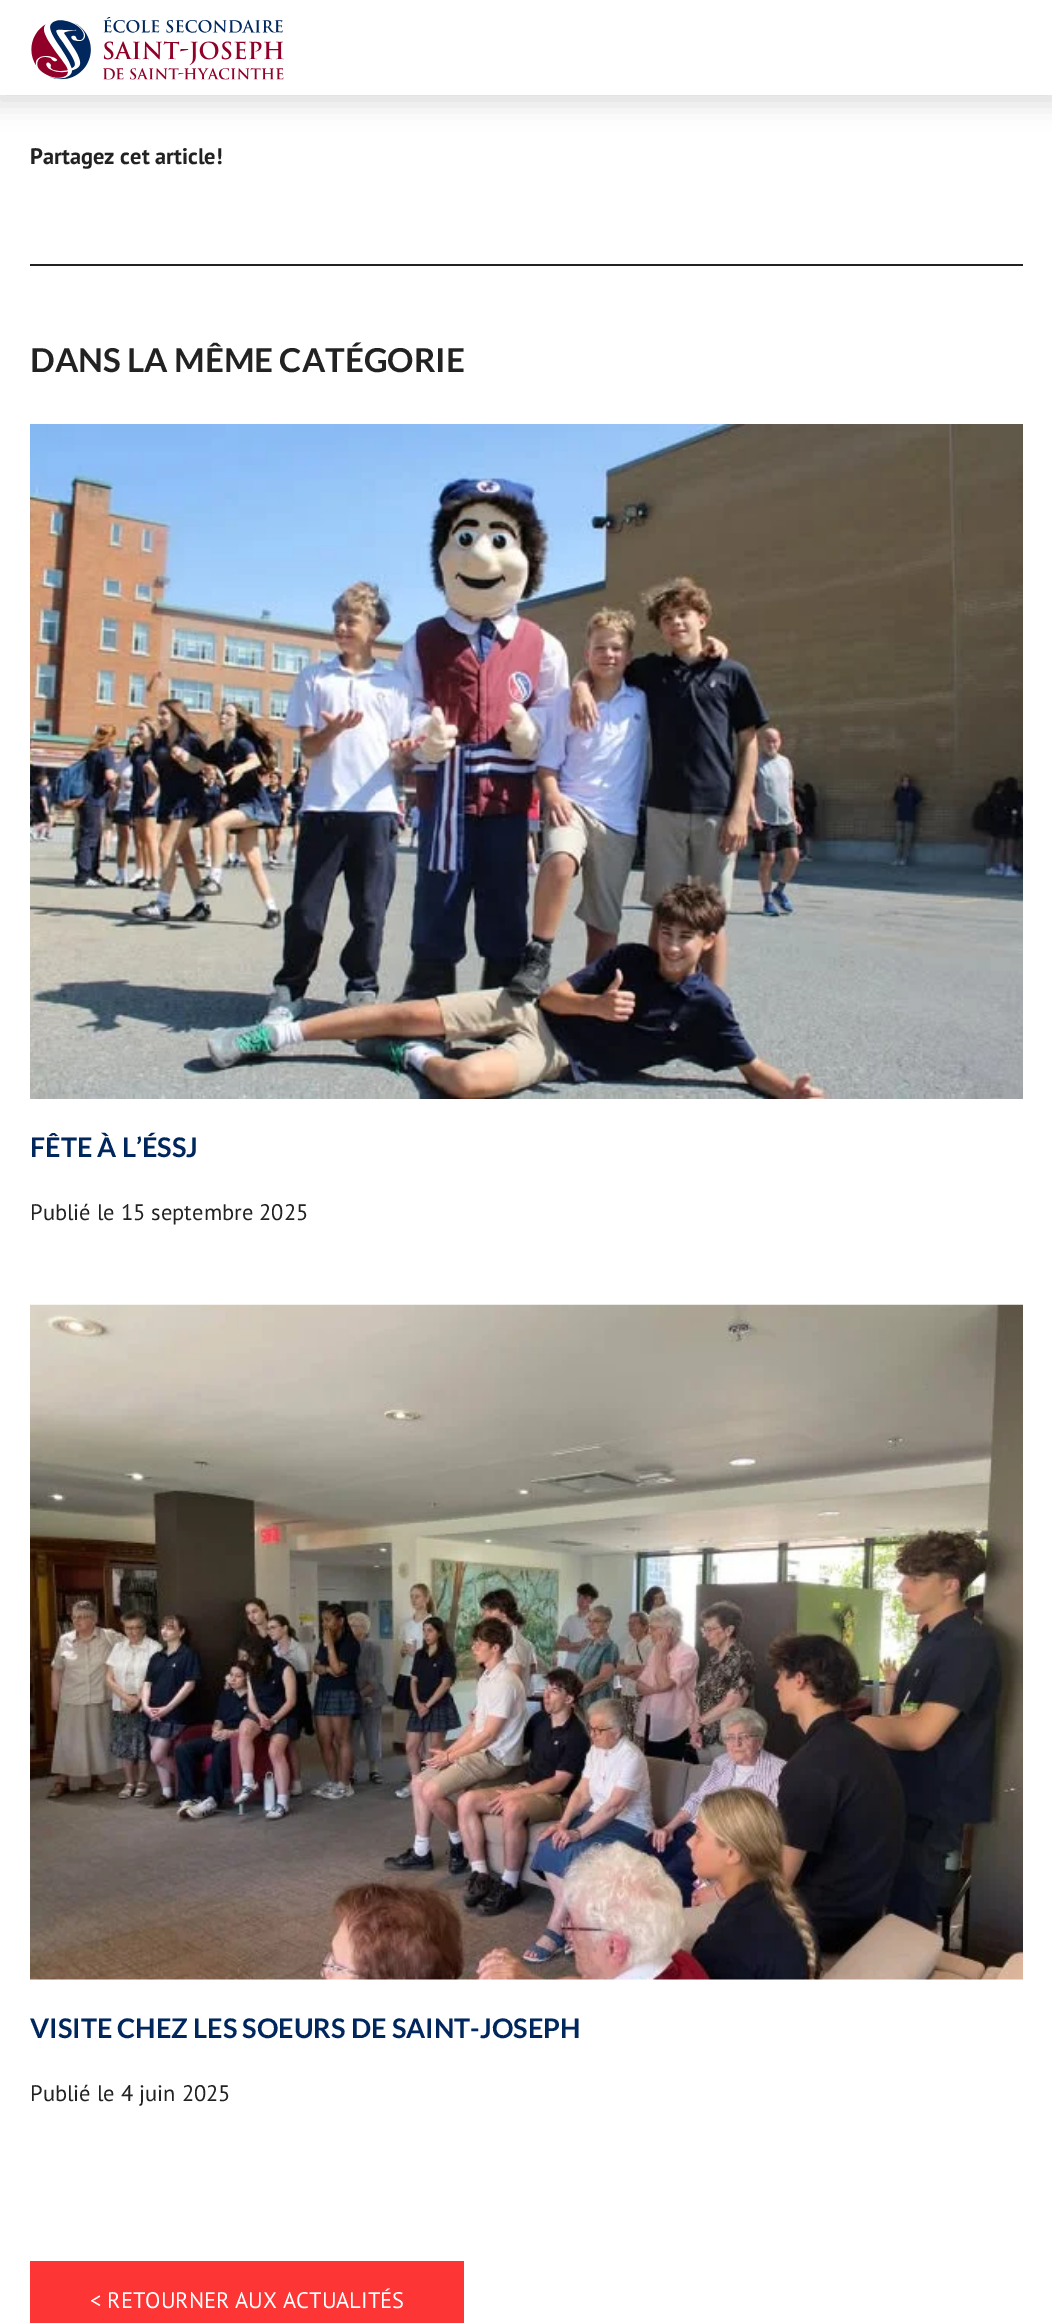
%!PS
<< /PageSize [1052 2323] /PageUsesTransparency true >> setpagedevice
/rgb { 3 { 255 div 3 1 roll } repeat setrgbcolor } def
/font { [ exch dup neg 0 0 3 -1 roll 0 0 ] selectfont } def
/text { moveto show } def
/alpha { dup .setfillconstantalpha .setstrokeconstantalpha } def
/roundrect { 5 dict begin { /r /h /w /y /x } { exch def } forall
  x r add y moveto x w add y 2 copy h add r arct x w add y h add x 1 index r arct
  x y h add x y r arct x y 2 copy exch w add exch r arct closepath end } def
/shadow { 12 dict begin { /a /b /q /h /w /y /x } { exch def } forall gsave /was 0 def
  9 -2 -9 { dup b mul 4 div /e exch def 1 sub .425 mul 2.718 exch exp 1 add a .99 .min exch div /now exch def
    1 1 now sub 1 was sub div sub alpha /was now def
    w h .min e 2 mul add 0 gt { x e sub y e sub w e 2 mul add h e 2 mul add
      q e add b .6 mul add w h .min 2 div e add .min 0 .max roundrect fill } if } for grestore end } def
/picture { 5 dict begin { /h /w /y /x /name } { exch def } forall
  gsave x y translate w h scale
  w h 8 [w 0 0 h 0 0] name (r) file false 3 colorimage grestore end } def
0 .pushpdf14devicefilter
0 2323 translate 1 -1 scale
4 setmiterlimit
255 255 255 rgb
0 0 1052 2323 rectfill
0 0 0 rgb
-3 5 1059 100 0 12 0.12 shadow
255 255 255 rgb
0 0 1052 95 rectfill
(img_01.rgb) 31 17 253 63 picture
34 34 34 rgb
30 264 993 2 rectfill
(img_02.rgb) 30 424 993 675 picture
(img_03.rgb) 30 1304 993 676 picture
254 53 53 rgb
30 2261 434 62 rectfill
/PTSans-Bold 22.5 font
34 34 34 rgb
(Partagez cet article!) 30 164 text
/Lato-Bold 33 font
(DANS LA MÊME CATÉGORIE) 30 372 text
/Lato-Bold 27 font
0 39 93 rgb
(FÊTE À L’ÉSSJ) 30 1157 text
/PTSans-Regular 22.5 font
34 34 34 rgb
(Publié le 15 septembre 2025) 30 1220 text
/Lato-Bold 27 font
0 39 93 rgb
(VISITE CHEZ LES SOEURS DE SAINT-JOSEPH) 30 2038 text
/PTSans-Regular 22.5 font
34 34 34 rgb
(Publié le 4 juin 2025) 30 2101 text
255 255 255 rgb
(< RETOURNER AUX ACTUALITÉS) 90 2308 text
.poppdf14devicefilter showpage
